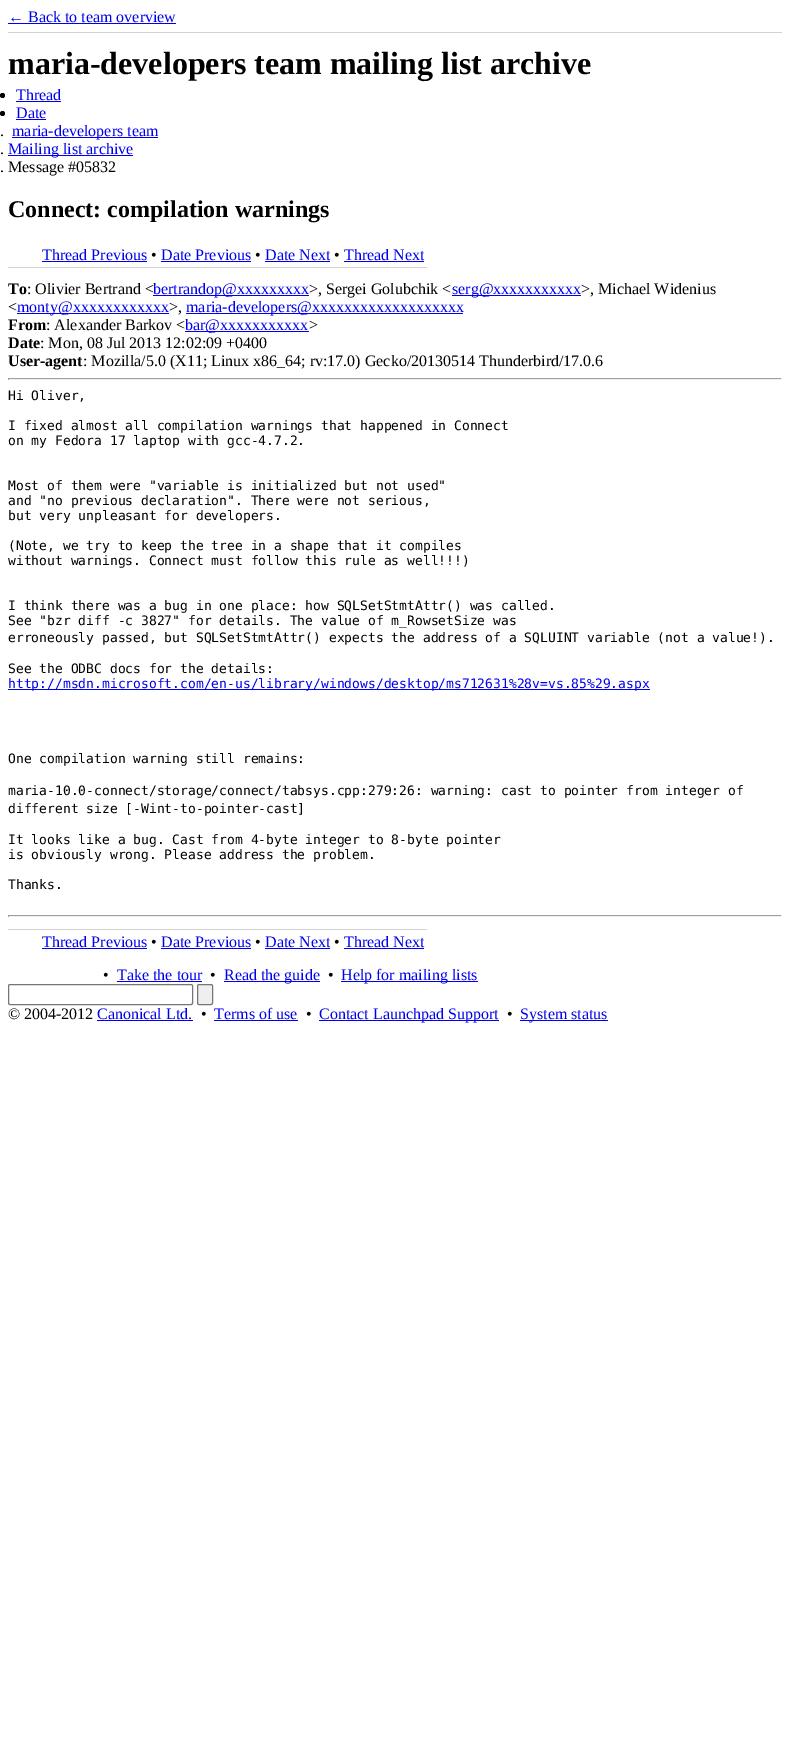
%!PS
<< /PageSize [790 1749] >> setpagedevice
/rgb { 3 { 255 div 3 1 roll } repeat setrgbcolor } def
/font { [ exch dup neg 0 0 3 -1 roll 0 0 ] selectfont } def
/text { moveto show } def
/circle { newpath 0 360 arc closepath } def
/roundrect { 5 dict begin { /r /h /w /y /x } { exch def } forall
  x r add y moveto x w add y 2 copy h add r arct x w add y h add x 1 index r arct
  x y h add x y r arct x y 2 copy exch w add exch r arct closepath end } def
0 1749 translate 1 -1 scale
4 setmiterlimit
255 255 255 rgb
0 0 790 1749 rectfill
210 210 210 rgb
8 32 774 1 rectfill
0 0 238 rgb
8 23 168 1 rectfill
0 0 0 rgb
2.5 95.5 2.5 circle fill
0 0 238 rgb
16 101 45 1 rectfill
0 0 0 rgb
2.5 113.5 2.5 circle fill
0 0 238 rgb
16 119 30 1 rectfill
12 137 146 1 rectfill
8 155 125 1 rectfill
210 210 210 rgb
8 267 419 1 rectfill
0 0 238 rgb
42 261 105 1 rectfill
161 261 90 1 rectfill
265 261 65 1 rectfill
344 261 80 1 rectfill
153 295 156 1 rectfill
452 295 129 1 rectfill
17 313 152 1 rectfill
186 313 277 1 rectfill
185 331 124 1 rectfill
159 159 159 rgb
8 378 774 1 rectfill
238 238 238 rgb
781 378 1 2 rectfill
8 379 774 1 rectfill
159 159 159 rgb
8 378 1 2 rectfill
0 0 238 rgb
8 689 642 1 rectfill
159 159 159 rgb
8 915 774 1 rectfill
238 238 238 rgb
781 915 1 2 rectfill
8 916 774 1 rectfill
159 159 159 rgb
8 915 1 2 rectfill
210 210 210 rgb
8 929 419 1 rectfill
0 0 238 rgb
42 948 105 1 rectfill
161 948 90 1 rectfill
265 948 65 1 rectfill
344 948 80 1 rectfill
117 981 85 1 rectfill
224 981 96 1 rectfill
341 981 137 1 rectfill
118 118 118 rgb
8.5 984.5 184 20 1.5 roundrect stroke
239 239 239 rgb
197.5 984.5 15 20 1.5 roundrect gsave fill grestore
118 118 118 rgb
stroke
0 0 238 rgb
97 1020 96 1 rectfill
214 1020 84 1 rectfill
319 1020 180 1 rectfill
520 1020 88 1 rectfill
/LiberationSerif-Regular 16 font
(← Back to team overview) 8 22 text
/LiberationSerif-Bold 32 font
0 0 0 rgb
(maria-developers team mailing list archive) 8 74 text
/LiberationSerif-Regular 16 font
0 0 238 rgb
(Thread) 16 100 text
(Date) 16 118 text
0 0 0 rgb
(.) 0 136 text
0 0 238 rgb
(maria-developers team) 12 136 text
0 0 0 rgb
(.) 0 154 text
0 0 238 rgb
(Mailing list archive) 8 154 text
0 0 0 rgb
(. Message #05832) 0 172 text
/LiberationSerif-Bold 24 font
(Connect: compilation warnings) 8 217 text
/LiberationSerif-Regular 16 font
0 0 238 rgb
(Thread Previous) 42 260 text
0 0 0 rgb
(•) 151 260 text
0 0 238 rgb
(Date Previous) 161 260 text
0 0 0 rgb
(•) 255 260 text
0 0 238 rgb
(Date Next) 265 260 text
0 0 0 rgb
(•) 334 260 text
0 0 238 rgb
(Thread Next) 344 260 text
/LiberationSerif-Bold 16 font
0 0 0 rgb
(To) 8 294 text
/LiberationSerif-Regular 16 font
(: Olivier Bertrand <) 27 294 text
0 0 238 rgb
(bertrandop@xxxxxxxxx) 153 294 text
0 0 0 rgb
(>, Sergei Golubchik <) 309 294 text
0 0 238 rgb
(serg@xxxxxxxxxxx) 452 294 text
0 0 0 rgb
(>, Michael Widenius) 581 294 text
(<) 8 312 text
0 0 238 rgb
(monty@xxxxxxxxxxxx) 17 312 text
0 0 0 rgb
(>,) 169 312 text
0 0 238 rgb
(maria-developers@xxxxxxxxxxxxxxxxxxx) 186 312 text
/LiberationSerif-Bold 16 font
0 0 0 rgb
(From) 8 330 text
/LiberationSerif-Regular 16 font
(: Alexander Barkov <) 46 330 text
0 0 238 rgb
(bar@xxxxxxxxxxx) 185 330 text
0 0 0 rgb
(>) 309 330 text
/LiberationSerif-Bold 16 font
(Date) 8 348 text
/LiberationSerif-Regular 16 font
(: Mon, 08 Jul 2013 12:02:09 +0400) 40 348 text
/LiberationSerif-Bold 16 font
(User-agent) 8 366 text
/LiberationSerif-Regular 16 font
(: Mozilla/5.0 \(X11; Linux x86_64; rv:17.0\) Gecko/20130514 Thunderbird/17.0.6) 83 366 text
/DejaVuSansMono-Regular 13 font
(Hi Oliver,) 8 400 text
(I fixed almost all compilation warnings that happened in Connect) 8 430 text
(on my Fedora 17 laptop with gcc-4.7.2.) 8 445 text
(Most of them were "variable is initialized but not used") 8 490 text
(and "no previous declaration". There were not serious,) 8 505 text
(but very unpleasant for developers.) 8 520 text
(\(Note, we try to keep the tree in a shape that it compiles) 8 550 text
(without warnings. Connect must follow this rule as well!!!\)) 8 565 text
(I think there was a bug in one place: how SQLSetStmtAttr\(\) was called.) 8 610 text
(See "bzr diff -c 3827" for details. The value of m_RowsetSize was) 8 625 text
(erroneously passed, but SQLSetStmtAttr\(\) expects the address of a SQLUINT variable \(not a value!\).) 8 642 text
(See the ODBC docs for the details:) 8 673 text
0 0 238 rgb
(http://msdn.microsoft.com/en-us/library/windows/desktop/ms712631%28v=vs.85%29.aspx) 8 688 text
0 0 0 rgb
(One compilation warning still remains:) 8 763 text
(maria-10.0-connect/storage/connect/tabsys.cpp:279:26: warning: cast to pointer from integer of) 8 795 text
(different size [-Wint-to-pointer-cast]) 8 813 text
(It looks like a bug. Cast from 4-byte integer to 8-byte pointer) 8 844 text
(is obviously wrong. Please address the problem.) 8 859 text
(Thanks.) 8 889 text
/LiberationSerif-Regular 16 font
0 0 238 rgb
(Thread Previous) 42 947 text
0 0 0 rgb
(•) 151 947 text
0 0 238 rgb
(Date Previous) 161 947 text
0 0 0 rgb
(•) 255 947 text
0 0 238 rgb
(Date Next) 265 947 text
0 0 0 rgb
(•) 334 947 text
0 0 238 rgb
(Thread Next) 344 947 text
0 0 0 rgb
(•) 103 980 text
0 0 238 rgb
(Take the tour) 117 980 text
0 0 0 rgb
(•) 210 980 text
0 0 238 rgb
(Read the guide) 224 980 text
0 0 0 rgb
(•) 328 980 text
0 0 238 rgb
(Help for mailing lists) 341 980 text
0 0 0 rgb
(© 2004-2012) 8 1019 text
0 0 238 rgb
(Canonical Ltd.) 97 1019 text
0 0 0 rgb
(•) 201 1019 text
0 0 238 rgb
(Terms of use) 214 1019 text
0 0 0 rgb
(•) 306 1019 text
0 0 238 rgb
(Contact Launchpad Support) 319 1019 text
0 0 0 rgb
(•) 507 1019 text
0 0 238 rgb
(System status) 520 1019 text
showpage
